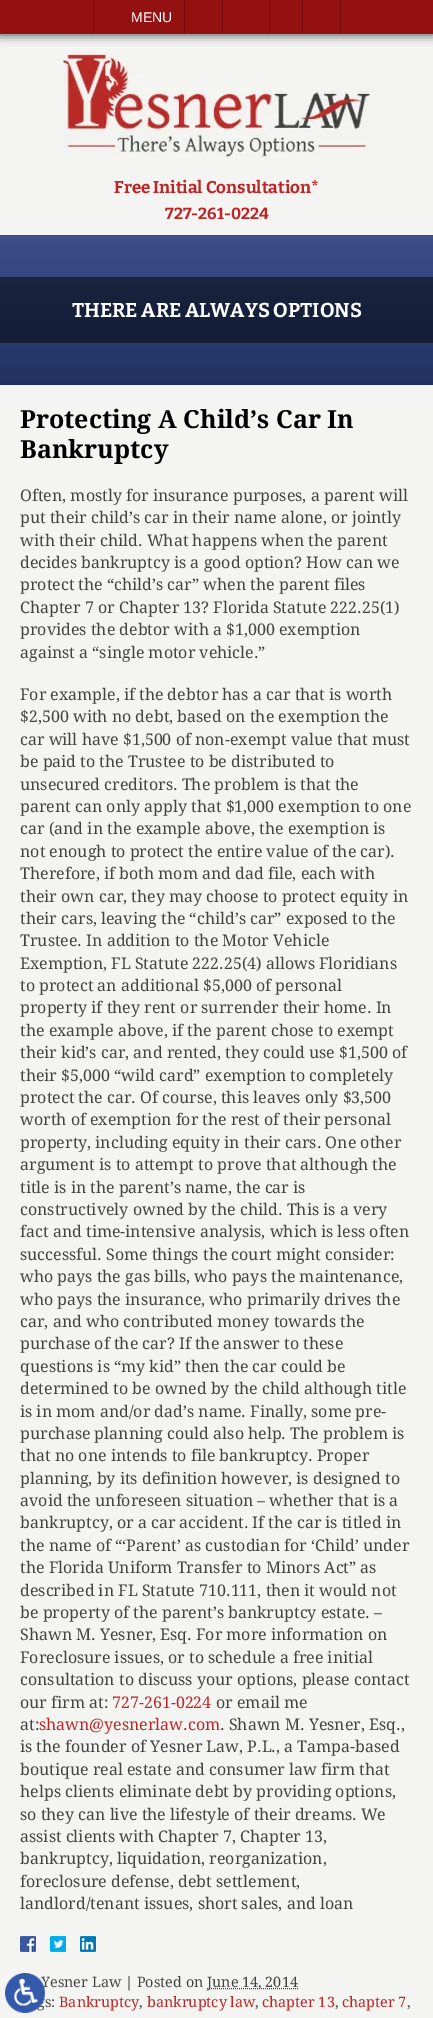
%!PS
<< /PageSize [433 2018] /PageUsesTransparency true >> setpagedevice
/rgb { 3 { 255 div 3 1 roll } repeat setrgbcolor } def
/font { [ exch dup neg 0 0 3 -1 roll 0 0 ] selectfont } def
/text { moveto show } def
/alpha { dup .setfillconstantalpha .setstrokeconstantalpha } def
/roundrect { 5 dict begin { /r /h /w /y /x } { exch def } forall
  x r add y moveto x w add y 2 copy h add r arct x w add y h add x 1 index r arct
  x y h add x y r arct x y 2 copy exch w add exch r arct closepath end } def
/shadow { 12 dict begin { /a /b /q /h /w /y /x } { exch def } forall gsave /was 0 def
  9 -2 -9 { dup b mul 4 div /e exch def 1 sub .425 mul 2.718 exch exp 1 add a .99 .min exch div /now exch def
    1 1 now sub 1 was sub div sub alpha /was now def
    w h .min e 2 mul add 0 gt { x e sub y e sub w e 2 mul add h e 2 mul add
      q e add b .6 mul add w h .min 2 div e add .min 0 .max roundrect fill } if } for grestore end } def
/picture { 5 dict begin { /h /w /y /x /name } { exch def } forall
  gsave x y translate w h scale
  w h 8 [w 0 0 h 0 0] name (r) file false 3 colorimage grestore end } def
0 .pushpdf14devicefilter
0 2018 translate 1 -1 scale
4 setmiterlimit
244 244 242 rgb
0 0 433 2018 rectfill
0 0 0 rgb
0 1 433 34 0 5 0.7 shadow
148 17 18 rgb
0 0 433 34 rectfill
121 10 11 rgb
184 0 1 34 rectfill
93 0 1 34 rectfill
222 0 1 34 rectfill
269 0 1 34 rectfill
302 0 1 34 rectfill
340 0 1 34 rectfill
(img_01.rgb) 63 54 308 103 picture
gsave 0 235 moveto 433 0 rlineto 0 150 rlineto -433 0 rlineto closepath clip newpath
<< /ShadingType 2 /ColorSpace /DeviceRGB /Coords [217 235 217 385] /Extend [true true] /Function << /FunctionType 2 /Domain [0 1] /C0 [0.235 0.31 0.541] /C1 [0.129 0.192 0.38] /N 1 >> >> shfill grestore
gsave 0 277 moveto 433 0 rlineto 0 66 rlineto -433 0 rlineto closepath clip newpath
<< /ShadingType 2 /ColorSpace /DeviceRGB /Coords [217 235 217 385] /Extend [true true] /Function << /FunctionType 2 /Domain [0 1] /C0 [0.118 0.157 0.271] /C1 [0.067 0.098 0.192] /N 1 >> >> shfill grestore
(img_02.rgb) 20 1936 16 16 picture
(img_03.rgb) 50 1936 16 16 picture
(img_04.rgb) 80 1936 16 16 picture
67 67 67 rgb
[1 1] 0 setdash
207 1988.5 moveto 91 0 rlineto stroke
/LiberationSans-Regular 14 font
255 255 255 rgb
(MENU) 131 22 text
/Bitter-Bold 17 font
187 37 38 rgb
(Free Initial Consultation*) 114 193 text
/Bitter-Bold 16 font
(727-261-0224) 165 219 text
/Bitter-Bold 20 font
255 255 255 rgb
(THERE ARE ALWAYS OPTIONS) 72 317 text
/DroidSerif-Bold 25 font
0 0 0 rgb
(Protecting A Child’s Car In) 20 428 text
(Bankruptcy) 20 458 text
/DroidSerif-Regular 16 font
67 67 67 rgb
(Often, mostly for insurance purposes, a parent will) 20 501 text
(put their child’s car in their name alone, or jointly) 20 523 text
(with their child. What happens when the parent) 20 546 text
(decides bankruptcy is a good option? How can we) 20 568 text
(protect the “child’s car” when the parent files) 20 590 text
(Chapter 7 or Chapter 13? Florida Statute 222.25\(1\)) 20 613 text
(provides the debtor with a $1,000 exemption) 20 635 text
(against a “single motor vehicle.”) 20 658 text
(For example, if the debtor has a car that is worth) 20 700 text
($2,500 with no debt, based on the exemption the) 20 722 text
(car will have $1,500 of non-exempt value that must) 20 745 text
(be paid to the Trustee to be distributed to) 20 767 text
(unsecured creditors. The problem is that the) 20 790 text
(parent can only apply that $1,000 exemption to one) 20 812 text
(car \(and in the example above, the exemption is) 20 834 text
(not enough to protect the entire value of the car\).) 20 857 text
(Therefore, if both mom and dad file, each with) 20 879 text
(their own car, they may choose to protect equity in) 20 902 text
(their cars, leaving the “child’s car” exposed to the) 20 924 text
(Trustee. In addition to the Motor Vehicle) 20 946 text
(Exemption, FL Statute 222.25\(4\) allows Floridians) 20 969 text
(to protect an additional $5,000 of personal) 20 991 text
(property if they rent or surrender their home. In) 20 1013 text
(the example above, if the parent chose to exempt) 20 1036 text
(their kid’s car, and rented, they could use $1,500 of) 20 1058 text
(their $5,000 “wild card” exemption to completely) 20 1081 text
(protect the car. Of course, this leaves only $3,500) 20 1103 text
(worth of exemption for the rest of their personal) 20 1125 text
(property, including equity in their cars. One other) 20 1148 text
(argument is to attempt to prove that although the) 20 1170 text
(title is in the parent’s name, the car is) 20 1193 text
(constructively owned by the child. This is a very) 20 1215 text
(fact and time-intensive analysis, which is less often) 20 1237 text
(successful. Some things the court might consider:) 20 1260 text
(who pays the gas bills, who pays the maintenance,) 20 1282 text
(who pays the insurance, who primarily drives the) 20 1305 text
(car, and who contributed money towards the) 20 1327 text
(purchase of the car? If the answer to these) 20 1349 text
(questions is “my kid” then the car could be) 20 1372 text
(determined to be owned by the child although title) 20 1394 text
(is in mom and/or dad’s name. Finally, some pre-) 20 1417 text
(purchase planning could also help. The problem is) 20 1439 text
(that no one intends to file bankruptcy. Proper) 20 1461 text
(planning, by its definition however, is designed to) 20 1484 text
(avoid the unforeseen situation – whether that is a) 20 1506 text
(bankruptcy, or a car accident. If the car is titled in) 20 1528 text
(the name of “‘Parent’ as custodian for ‘Child’ under) 20 1551 text
(the Florida Uniform Transfer to Minors Act” as) 20 1573 text
(described in FL Statute 710.111, then it would not) 20 1596 text
(be property of the parent’s bankruptcy estate. –) 20 1618 text
(Shawn M. Yesner, Esq. For more information on) 20 1640 text
(Foreclosure issues, or to schedule a free initial) 20 1663 text
(consultation to discuss your options, please contact) 20 1685 text
(our firm at:) 20 1708 text
187 37 38 rgb
(727-261-0224) 112 1708 text
67 67 67 rgb
(or email me) 216 1708 text
(at:) 20 1730 text
187 37 38 rgb
(shawn@yesnerlaw.com) 39 1730 text
67 67 67 rgb
(. Shawn M. Yesner, Esq.,) 220 1730 text
(is the founder of Yesner Law, P.L., a Tampa-based) 20 1752 text
(boutique real estate and consumer law firm that) 20 1775 text
(helps clients eliminate debt by providing options,) 20 1797 text
(so they can live the lifestyle of their dreams. We) 20 1820 text
(assist clients with Chapter 7, Chapter 13,) 20 1842 text
(bankruptcy, liquidation, reorganization,) 20 1864 text
(foreclosure defense, debt settlement,) 20 1887 text
(landlord/tenant issues, short sales, and loan) 20 1909 text
/DroidSerif-Regular 14.4 font
(Yesner Law | Posted on) 41 1987 text
(June 14, 2014) 207 1987 text
(gs:) 37 2007 text
187 37 38 rgb
(Bankruptcy) 59 2007 text
67 67 67 rgb
(,) 139 2007 text
187 37 38 rgb
(bankruptcy law) 147 2007 text
67 67 67 rgb
(,) 255 2007 text
187 37 38 rgb
(chapter 13) 262 2007 text
67 67 67 rgb
(,) 335 2007 text
187 37 38 rgb
(chapter 7) 342 2007 text
67 67 67 rgb
(,) 407 2007 text
(img_05.rgb) 5 1973 40 40 picture
.poppdf14devicefilter showpage
